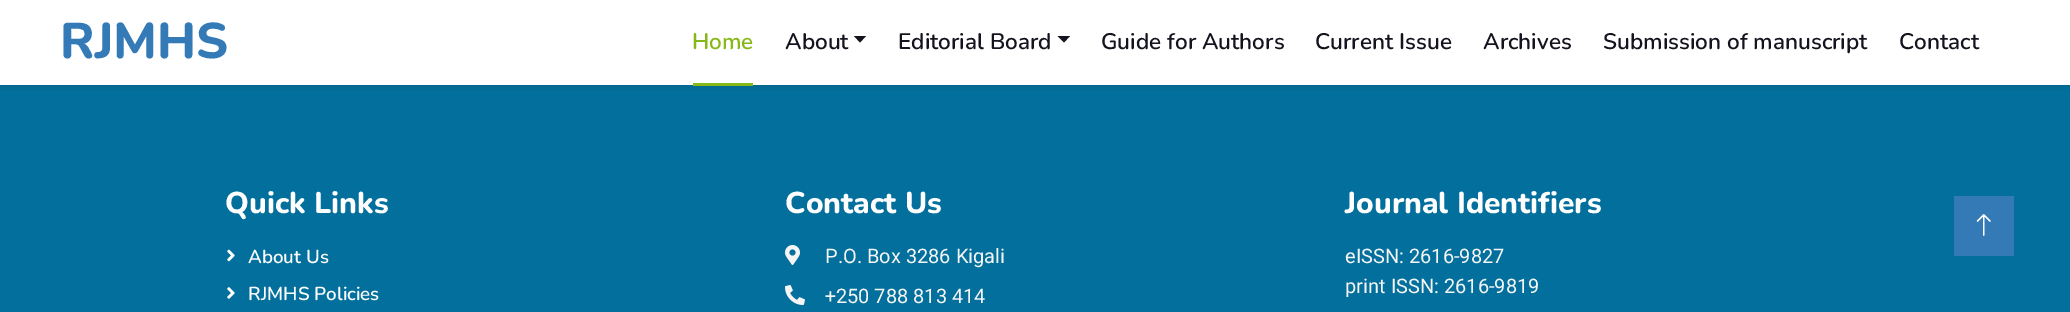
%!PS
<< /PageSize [2070 312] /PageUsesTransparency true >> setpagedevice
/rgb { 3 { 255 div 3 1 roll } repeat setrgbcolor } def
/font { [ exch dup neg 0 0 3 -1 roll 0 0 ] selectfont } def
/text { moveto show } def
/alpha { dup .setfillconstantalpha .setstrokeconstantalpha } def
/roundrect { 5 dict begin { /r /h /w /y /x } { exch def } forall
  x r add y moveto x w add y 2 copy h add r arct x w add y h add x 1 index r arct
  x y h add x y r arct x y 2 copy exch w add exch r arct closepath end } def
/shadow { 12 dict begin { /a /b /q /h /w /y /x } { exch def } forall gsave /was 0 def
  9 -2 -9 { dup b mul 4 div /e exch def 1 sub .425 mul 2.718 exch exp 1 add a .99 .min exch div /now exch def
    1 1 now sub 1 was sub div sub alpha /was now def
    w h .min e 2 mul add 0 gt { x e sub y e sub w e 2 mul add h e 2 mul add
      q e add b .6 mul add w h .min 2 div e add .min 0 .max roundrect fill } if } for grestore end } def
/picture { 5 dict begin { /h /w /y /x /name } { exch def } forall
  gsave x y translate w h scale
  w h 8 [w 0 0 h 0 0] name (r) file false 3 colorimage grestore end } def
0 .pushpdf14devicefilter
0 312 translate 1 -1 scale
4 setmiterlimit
3 111 157 rgb
0 0 2070 312 rectfill
0 0 0 rgb
0 3 2070 85 0 2.5 0.07 shadow
255 255 255 rgb
0 0 2070 85 rectfill
134 184 23 rgb
693 83 60 3 rectfill
20 20 31 rgb
854 36 moveto 12 0 rlineto -6 6.5 rlineto closepath fill
1057.5 36 moveto 12.5 0 rlineto -6 6.5 rlineto closepath fill
(img_01.rgb) 227 249 8 13 picture
(img_02.rgb) 227 287 8 12 picture
(img_03.rgb) 785 245 15 20 picture
(img_04.rgb) 785 285 20 20 picture
51 122 183 rgb
1954 196 60 60 rectfill
(img_05.rgb) 1976 214 15 22 picture
/Nunito-ExtraBold 50 font
(RJMHS) 60 58 text
/Nunito-SemiBold 22.5 font
134 184 23 rgb
(Home) 692 49 text
20 20 31 rgb
(About) 785 49 text
(Editorial Board) 898 49 text
(Guide for Authors) 1101 49 text
(Current Issue) 1315 49 text
(Archives) 1483 49 text
(Submission of manuscript) 1603 49 text
(Contact) 1899 49 text
/Nunito-ExtraBold 30 font
255 255 255 rgb
(Quick Links) 225 213 text
/Nunito-SemiBold 18.75 font
(About Us) 248 263 text
(RJMHS Policies) 248 300 text
/Nunito-ExtraBold 30 font
(Contact Us) 785 213 text
/Heebo-Regular 20 font
245 245 245 rgb
(P.O. Box 3286 Kigali) 825 263 text
(+250 788 813 414) 825 303 text
/Nunito-ExtraBold 30 font
255 255 255 rgb
(Journal Identifiers) 1345 213 text
/Heebo-Regular 20 font
245 245 245 rgb
(eISSN: 2616-9827) 1345 263 text
(print ISSN: 2616-9819) 1345 293 text
.poppdf14devicefilter showpage
